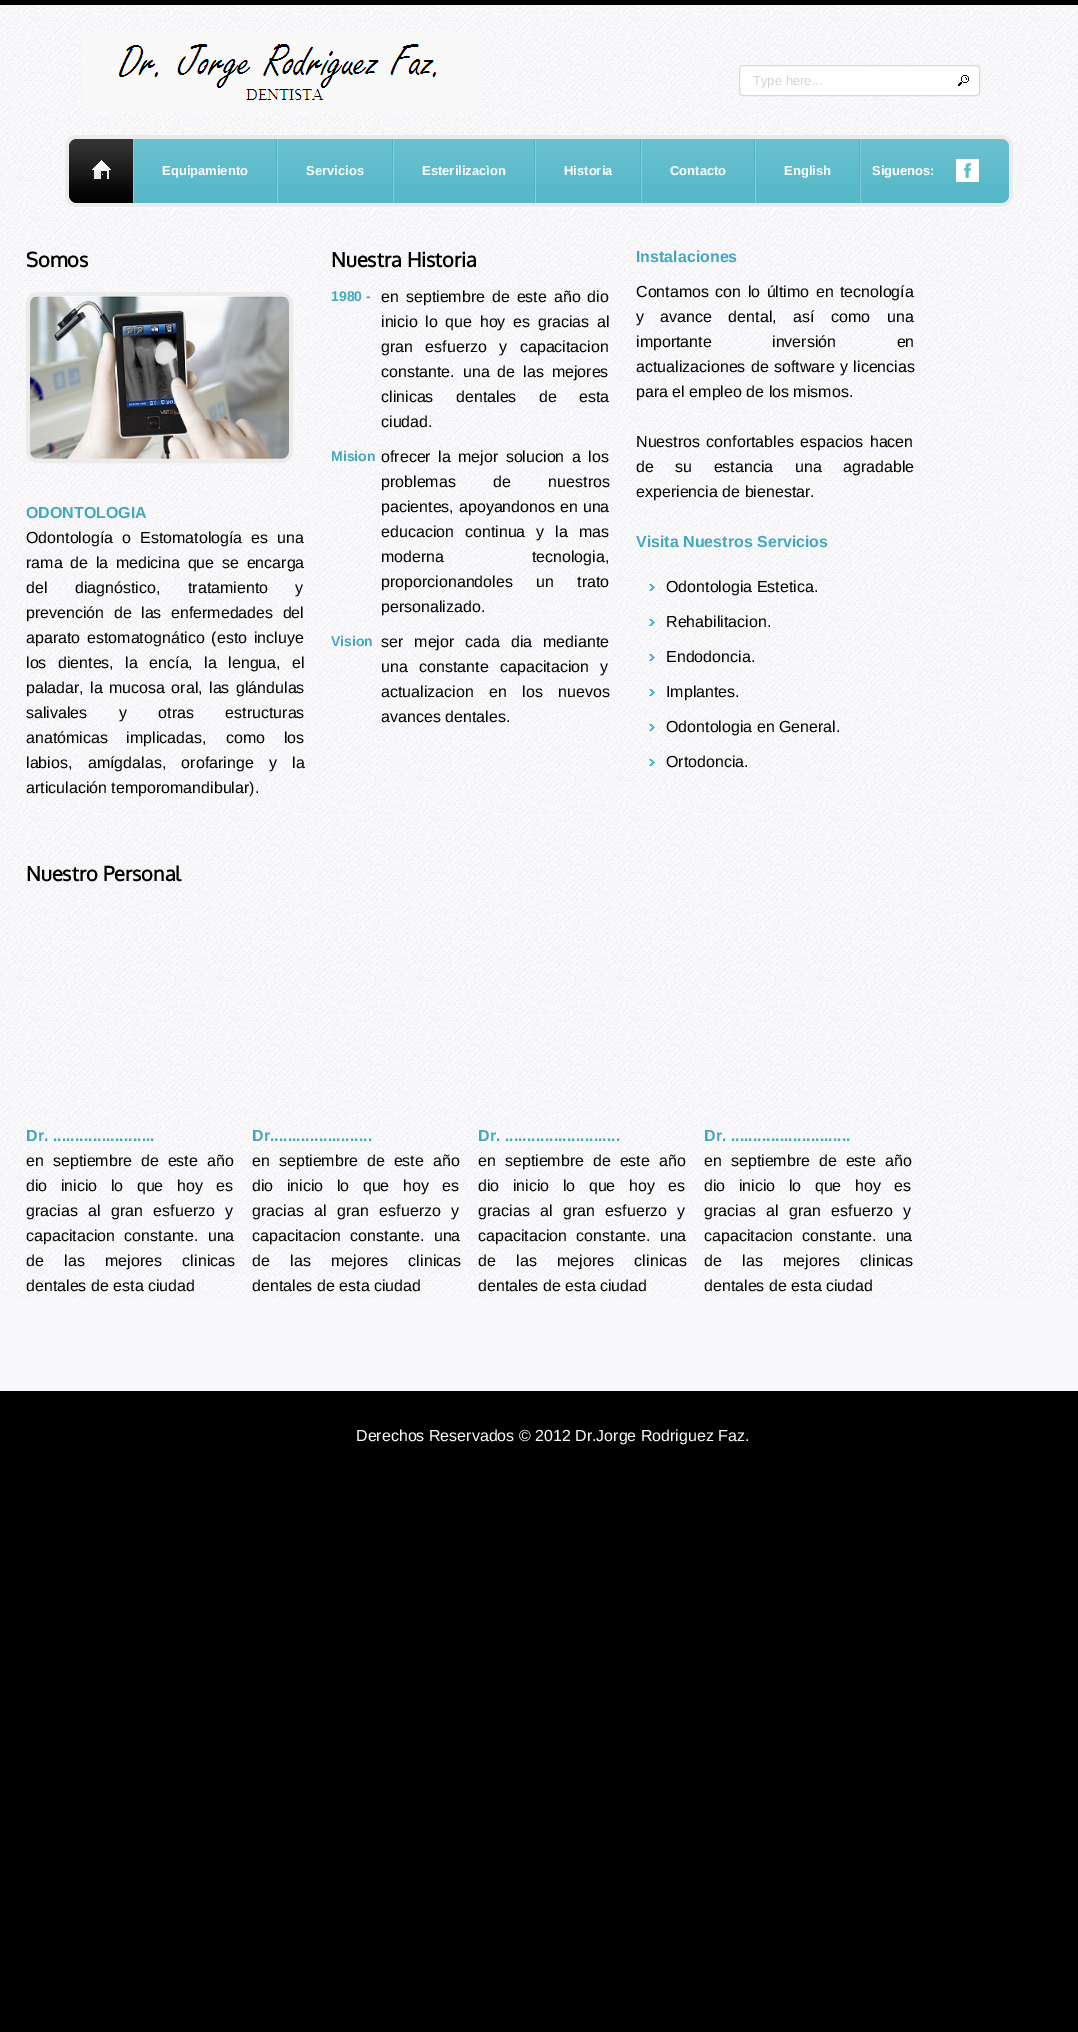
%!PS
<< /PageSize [1078 2032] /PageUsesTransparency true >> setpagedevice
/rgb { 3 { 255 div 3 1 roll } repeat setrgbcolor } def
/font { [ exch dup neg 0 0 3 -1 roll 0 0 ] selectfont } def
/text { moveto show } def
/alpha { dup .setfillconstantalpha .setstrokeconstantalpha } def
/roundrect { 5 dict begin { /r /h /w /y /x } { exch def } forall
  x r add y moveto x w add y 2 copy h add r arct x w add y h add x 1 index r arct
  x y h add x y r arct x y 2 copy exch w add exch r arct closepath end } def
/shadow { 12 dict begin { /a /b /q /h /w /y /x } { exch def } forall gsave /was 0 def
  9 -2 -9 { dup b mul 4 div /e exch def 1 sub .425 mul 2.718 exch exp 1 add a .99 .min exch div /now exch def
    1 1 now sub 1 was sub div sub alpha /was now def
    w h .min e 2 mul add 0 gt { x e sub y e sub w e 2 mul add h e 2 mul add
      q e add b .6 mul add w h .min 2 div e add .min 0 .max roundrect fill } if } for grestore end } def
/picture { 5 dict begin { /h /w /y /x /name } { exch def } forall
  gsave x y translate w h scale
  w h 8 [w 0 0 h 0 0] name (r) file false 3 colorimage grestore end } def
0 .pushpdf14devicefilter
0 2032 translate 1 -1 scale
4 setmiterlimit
0 0 0 rgb
0 0 1078 2032 rectfill
(img_01.rgb) 0 5 1078 1293 picture
(img_02.rgb) 82 32 398 81 picture
255 255 255 rgb
739.5 65.5 240 30 3.5 roundrect gsave fill grestore
217 217 219 rgb
stroke
(img_03.rgb) 958 75 11 11 picture
255 255 255 rgb
65 136 948 72 12 0.5 1 shadow
235 235 236 rgb
65 135 948 72 12 roundrect fill
85 183 200 rgb
81 139 moveto 920 0 rlineto 4.5 0 8 3.5 8 8 rcurveto 0 48 rlineto 0 4.5 -3.5 8 -8 8 rcurveto -920 0 rlineto -6.5 0 -12 -5.5 -12 -12 rcurveto 0 -40 rlineto 0 -6.5 5.5 -12 12 -12 rcurveto closepath fill
(img_04.rgb) 69 139 940 64 picture
122 202 215 rgb
860 139 1 64 rectfill
0 0 0 rgb
77 139 moveto 56 0 rlineto 0 64 rlineto -56 0 rlineto -4.5 0 -8 -3.5 -8 -8 rcurveto 0 -48 rlineto 0 -4.5 3.5 -8 8 -8 rcurveto closepath fill
(img_05.rgb) 69 139 64 64 picture
(img_06.rgb) 92 160 19 19 picture
83 178 195 rgb
276 139 1 64 rectfill
130 206 218 rgb
133 139 1 64 rectfill
83 178 195 rgb
392 139 1 64 rectfill
130 206 218 rgb
277 139 1 64 rectfill
83 178 195 rgb
534 139 1 64 rectfill
130 206 218 rgb
393 139 1 64 rectfill
83 178 195 rgb
640 139 1 64 rectfill
130 206 218 rgb
535 139 1 64 rectfill
83 178 195 rgb
754 139 1 64 rectfill
130 206 218 rgb
641 139 1 64 rectfill
83 178 195 rgb
859 139 1 64 rectfill
130 206 218 rgb
755 139 1 64 rectfill
(img_07.rgb) 956 159 23 23 picture
235 235 236 rgb
4 setlinewidth
28 294 263 167 10 roundrect stroke
(img_08.rgb) 30 296 259 163 picture
(img_09.rgb) 649 584 6 7 picture
(img_10.rgb) 649 619 6 7 picture
(img_11.rgb) 649 654 6 7 picture
(img_12.rgb) 649 689 6 7 picture
(img_13.rgb) 649 724 6 7 picture
(img_14.rgb) 649 759 6 7 picture
249 249 251 rgb
0 1298 1078 93 rectfill
/LiberationSans-Regular 13 font
210 210 210 rgb
(Type here...) 753 85 text
/LiberationSans-Bold 13 font
255 255 255 rgb
(Equipamiento) 162 175 text
(Servicios) 306 175 text
(Esterilizacìon) 422 175 text
(Historia) 564 175 text
(Contacto) 670 175 text
(English) 784 175 text
(Siguenos:) 872 175 text
/Oxygen-Bold 20 font
0 0 0 rgb
(Somos) 26 267 text
/LiberationSans-Bold 16 font
68 167 187 rgb
(ODONTOLOGIA) 26 518 text
/LiberationSans-Regular 16 font
0 0 0 rgb
26 543 moveto 4.5 0 32 (Odontología o Estomatología es una) widthshow
26 568 moveto 3.25 0 32 (rama de la medicina que se encarga) widthshow
(del) 26 593 text
75 593 moveto 23 0 32 (diagnóstico, tratamiento y) widthshow
26 618 moveto 5 0 32 (prevención de las enfermedades del) widthshow
(aparato) 26 643 text
87 643 moveto 2.5 0 32 (estomatognático \(esto incluye) widthshow
26 668 moveto 7 0 32 (los dientes, la encía, la lengua, el) widthshow
26 693 moveto 2 0 32 (paladar, la) widthshow
109 693 moveto 2 0 32 (mucosa oral, las glándulas) widthshow
26 718 moveto 27 0 32 (salivales y otras estructuras) widthshow
26 743 moveto 14 0 32 (anatómicas implicadas,) widthshow
226 743 moveto 14 0 32 (como los) widthshow
26 768 moveto 11 0 32 (labios, amígdalas, orofaringe y la) widthshow
(articulación temporomandibular\).) 26 793 text
/Oxygen-Bold 20 font
(Nuestra Historia) 331 267 text
/LiberationSans-Bold 14 font
68 167 187 rgb
(1980 -) 331 301 text
/LiberationSans-Regular 16 font
0 0 0 rgb
381 302 moveto 2.5 0 32 (en septiembre de este año dio) widthshow
381 327 moveto 3.25 0 32 (inicio lo que hoy es gracias al) widthshow
381 352 moveto 8 0 32 (gran esfuerzo y capacitacion) widthshow
381 377 moveto 3.5 0 32 (constante. una de las mejores) widthshow
381 402 moveto 18 0 32 (clinicas dentales de esta) widthshow
(ciudad.) 381 427 text
/LiberationSans-Bold 14 font
68 167 187 rgb
(Mision) 331 461 text
/LiberationSans-Regular 16 font
0 0 0 rgb
381 462 moveto 3 0 32 (ofrecer la mejor solucion a los) widthshow
381 487 moveto 33 0 32 (problemas de nuestros) widthshow
381 512 moveto 0.5 0 32 (pacientes, apoyandonos en una) widthshow
381 537 moveto 6.5 0 32 (educacion continua y la mas) widthshow
381 562 moveto 83 0 32 (moderna tecnologia,) widthshow
381 587 moveto 19 0 32 (proporcionandoles un trato) widthshow
(personalizado.) 381 612 text
/LiberationSans-Bold 14 font
68 167 187 rgb
(Vision) 331 646 text
/LiberationSans-Regular 16 font
0 0 0 rgb
381 647 moveto 6.5 0 32 (ser mejor cada dia mediante) widthshow
381 672 moveto 7 0 32 (una constante capacitacion y) widthshow
381 697 moveto 11 0 32 (actualizacion en los nuevos) widthshow
(avances dentales.) 381 722 text
/LiberationSans-Bold 16 font
68 167 187 rgb
(Instalaciones) 636 262 text
/LiberationSans-Regular 16 font
0 0 0 rgb
636 297 moveto 2 0 32 (Contamos con lo último en tecnología) widthshow
636 322 moveto 12 0 32 (y avance dental, así como) widthshow
(una) 887 322 text
636 347 moveto 56 0 32 (importante inversión en) widthshow
636 372 moveto 1 0 32 (actualizaciones de software y licencias) widthshow
(para el empleo de los mismos.) 636 397 text
636 447 moveto 2 0 32 (Nuestros confortables espacios hacen) widthshow
636 472 moveto 17 0 32 (de su estancia) widthshow
795 472 moveto 17 0 32 (una agradable) widthshow
(experiencia de bienestar.) 636 497 text
/LiberationSans-Bold 16 font
68 167 187 rgb
(Visita Nuestros Servicios) 636 547 text
/LiberationSans-Regular 16 font
0 0 0 rgb
(Odontologia Estetica.) 666 592 text
(Rehabilitacion.) 666 627 text
(Endodoncia.) 666 662 text
(Implantes.) 666 697 text
(Odontologia en General.) 666 732 text
(Ortodoncia.) 666 767 text
/Oxygen-Bold 20 font
(Nuestro Personal) 26 881 text
/LiberationSans-Bold 16 font
68 167 187 rgb
(Dr. .......................) 26 1141 text
/LiberationSans-Regular 16 font
0 0 0 rgb
26 1166 moveto 4.5 0 32 (en septiembre de este año) widthshow
26 1191 moveto 9 0 32 (dio inicio lo que hoy es) widthshow
26 1216 moveto 6 0 32 (gracias al gran esfuerzo y) widthshow
26 1241 moveto 5 0 32 (capacitacion constante. una) widthshow
26 1266 moveto 16 0 32 (de las mejores clinicas) widthshow
(dentales de esta ciudad) 26 1291 text
/LiberationSans-Bold 16 font
68 167 187 rgb
(Dr.......................) 252 1141 text
/LiberationSans-Regular 16 font
0 0 0 rgb
252 1166 moveto 4.5 0 32 (en septiembre de este año) widthshow
252 1191 moveto 9 0 32 (dio inicio lo que hoy es) widthshow
252 1216 moveto 6 0 32 (gracias al gran esfuerzo y) widthshow
252 1241 moveto 5 0 32 (capacitacion constante. una) widthshow
252 1266 moveto 16 0 32 (de las mejores clinicas) widthshow
(dentales de esta ciudad) 252 1291 text
/LiberationSans-Bold 16 font
68 167 187 rgb
(Dr. ..........................) 478 1141 text
/LiberationSans-Regular 16 font
0 0 0 rgb
478 1166 moveto 4.5 0 32 (en septiembre de este año) widthshow
478 1191 moveto 9 0 32 (dio inicio lo que hoy es) widthshow
478 1216 moveto 6 0 32 (gracias al gran esfuerzo y) widthshow
478 1241 moveto 5 0 32 (capacitacion constante. una) widthshow
478 1266 moveto 16 0 32 (de las mejores clinicas) widthshow
(dentales de esta ciudad) 478 1291 text
/LiberationSans-Bold 16 font
68 167 187 rgb
(Dr. ...........................) 704 1141 text
/LiberationSans-Regular 16 font
0 0 0 rgb
704 1166 moveto 4.5 0 32 (en septiembre de este año) widthshow
704 1191 moveto 9 0 32 (dio inicio lo que hoy es) widthshow
704 1216 moveto 6 0 32 (gracias al gran esfuerzo y) widthshow
704 1241 moveto 5 0 32 (capacitacion constante. una) widthshow
704 1266 moveto 16 0 32 (de las mejores clinicas) widthshow
(dentales de esta ciudad) 704 1291 text
255 255 255 rgb
(Derechos Reservados © 2012 Dr.Jorge Rodriguez Faz.) 356 1441 text
.poppdf14devicefilter showpage
